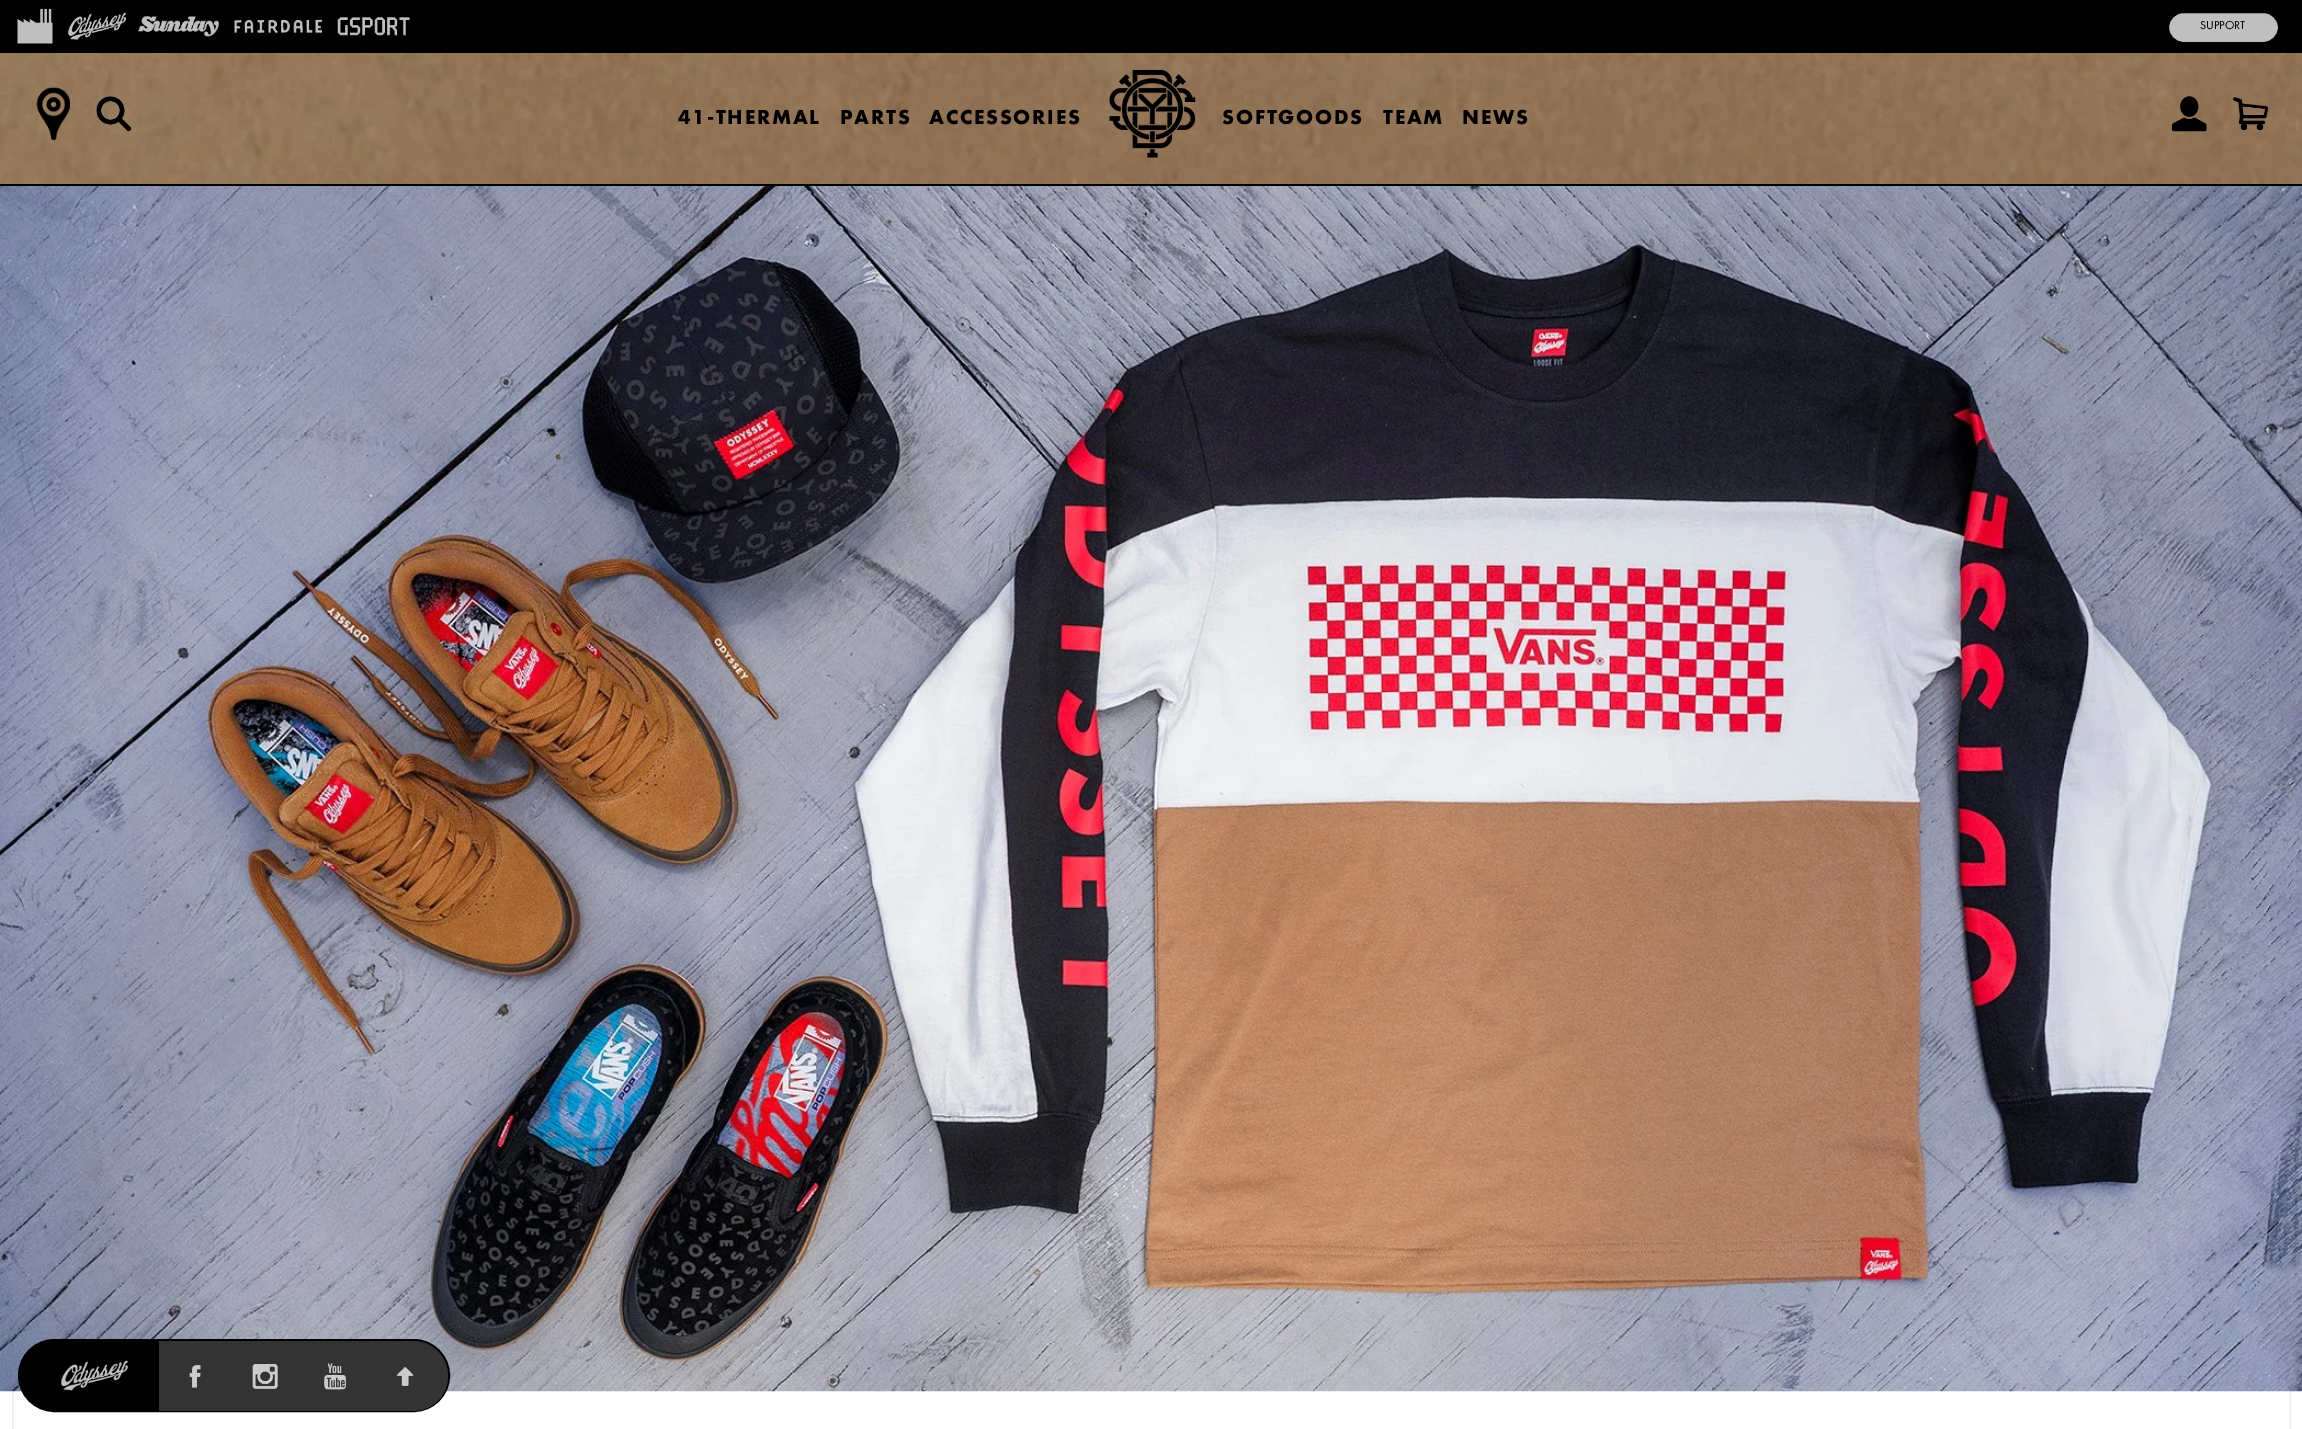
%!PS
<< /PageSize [2302 1429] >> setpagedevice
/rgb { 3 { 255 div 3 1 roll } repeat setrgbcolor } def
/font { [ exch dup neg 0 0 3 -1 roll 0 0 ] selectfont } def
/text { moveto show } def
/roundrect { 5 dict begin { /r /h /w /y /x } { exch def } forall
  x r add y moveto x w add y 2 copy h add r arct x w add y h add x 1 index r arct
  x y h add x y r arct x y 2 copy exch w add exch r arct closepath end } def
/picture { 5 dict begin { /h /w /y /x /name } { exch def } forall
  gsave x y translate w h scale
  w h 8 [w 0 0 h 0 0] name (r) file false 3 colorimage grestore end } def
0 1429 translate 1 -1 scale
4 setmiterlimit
255 255 255 rgb
0 0 2302 1429 rectfill
0 0 0 rgb
0 0 2302 53 rectfill
(img_01.rgb) 17 8 36 36 picture
(img_02.rgb) 68 12 58 28 picture
(img_03.rgb) 138 15 81 22 picture
(img_04.rgb) 234 19 88 15 picture
(img_05.rgb) 337 17 73 19 picture
191 191 191 rgb
2168 12 111 31 15.5 roundrect gsave fill grestore
0 0 0 rgb
2 setlinewidth
stroke
(img_06.rgb) 0 53 2302 131 picture
0 184 2302 2 rectfill
(img_07.rgb) 36 87 34 53 picture
(img_08.rgb) 96 96 36 36 picture
(img_09.rgb) 1109 70 87 88 picture
(img_10.rgb) 2171 96 36 36 picture
(img_11.rgb) 2233 97 35 34 picture
239 239 239 rgb
2289 1391 2 38 rectfill
12 1391 2 38 rectfill
(img_12.rgb) 0 186 2302 1206 picture
0 0 0 rgb
19 1340 430 71 35.5 roundrect gsave fill grestore
stroke
(img_13.rgb) 61 1360 67 31 picture
51 51 51 rgb
159 1341 210 70 rectfill
(img_14.rgb) 189 1365 12 23 picture
369 1341 moveto 44 0 rlineto 19.5 0 35 15.5 35 35 rcurveto 0 19.5 -15.5 35 -35 35 rcurveto -44 0 rlineto closepath fill
(img_15.rgb) 397 1367 17 19 picture
(img_16.rgb) 252 1364 26 25 picture
(img_17.rgb) 324 1363 22 27 picture
/FuturaPT-Regular 12 font
0 0 0 rgb
(SUPPORT) 2200 29 text
/FuturaPT-Bold 21 font
678 124 moveto 1.75 0 (41-THERMAL) ashow
840 124 moveto 1.75 0 (PARTS) ashow
929 124 moveto 1.75 0 (ACCESSORIES) ashow
1222 124 moveto 1.75 0 (SOFTGOODS) ashow
1383 124 moveto 1.75 0 (TEAM) ashow
1462 124 moveto 1.75 0 (NEWS) ashow
showpage
